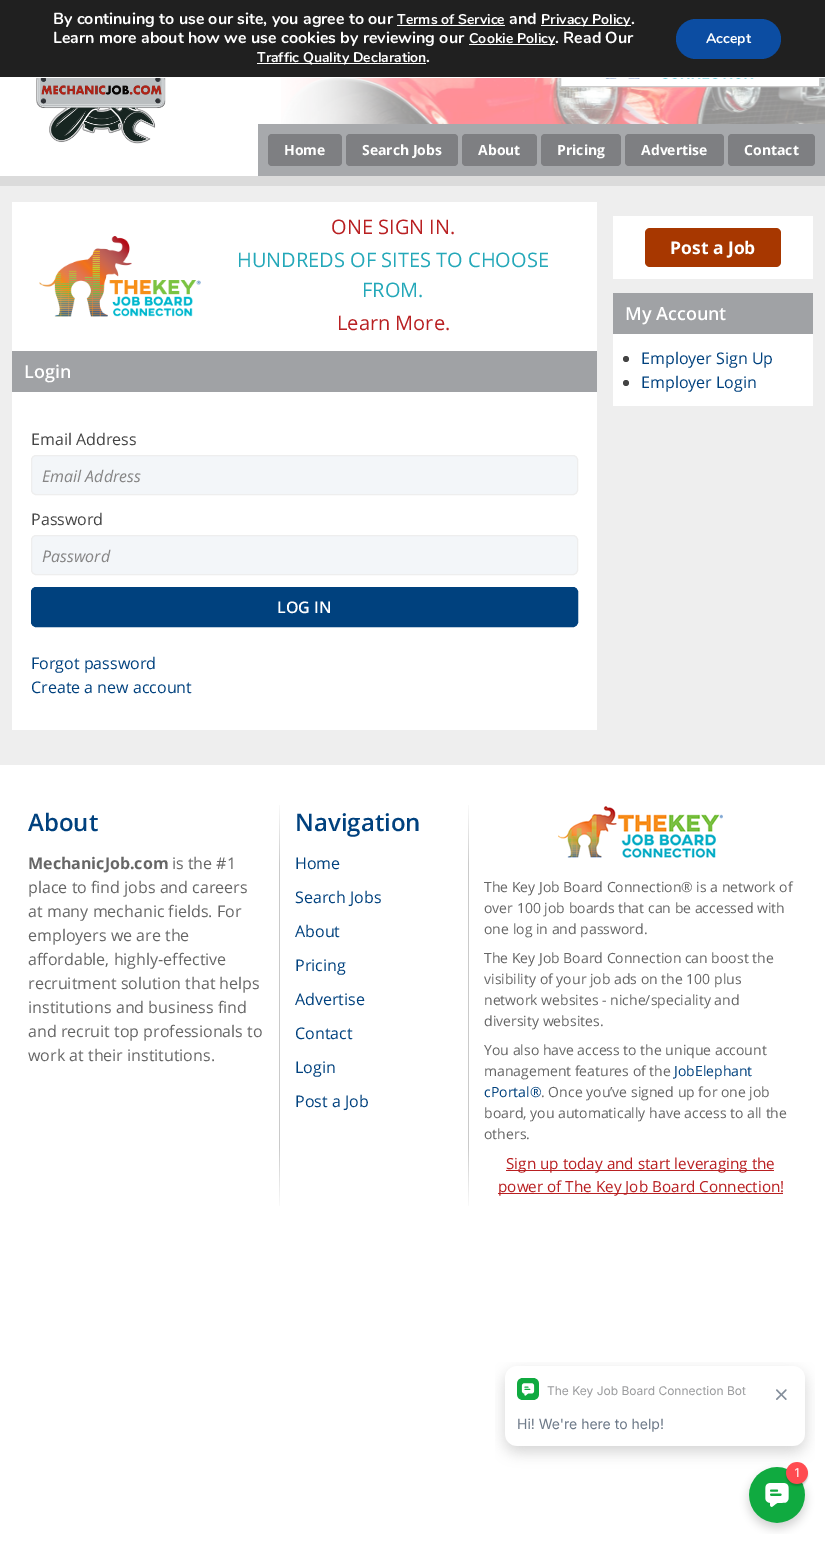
%!PS
<< /PageSize [825 1543] >> setpagedevice
/rgb { 3 { 255 div 3 1 roll } repeat setrgbcolor } def
/font { [ exch dup neg 0 0 3 -1 roll 0 0 ] selectfont } def
/text { moveto show } def
/circle { newpath 0 360 arc closepath } def
/roundrect { 5 dict begin { /r /h /w /y /x } { exch def } forall
  x r add y moveto x w add y 2 copy h add r arct x w add y h add x 1 index r arct
  x y h add x y r arct x y 2 copy exch w add exch r arct closepath end } def
/picture { 5 dict begin { /h /w /y /x /name } { exch def } forall
  gsave x y translate w h scale
  w h 8 [w 0 0 h 0 0] name (r) file false 3 colorimage grestore end } def
0 1543 translate 1 -1 scale
4 setmiterlimit
255 255 255 rgb
0 0 825 1543 rectfill
(img_01.rgb) 281 78 544 46 picture
561 78 258 8 rectfill
204 204 204 rgb
560.5 20.5 259 66 rectstroke
32 32 32 rgb
0 0 825 77 rectfill
255 255 255 rgb
560 77 265 1 rectfill
397 25 108 1 rectfill
541 25 90 1 rectfill
469 44 86 1 rectfill
257 63 169 1 rectfill
12 77 162 rgb
676 19 105 40 20 roundrect fill
219 219 219 rgb
0 176 825 10 rectfill
(img_02.rgb) 596 78 165 1 picture
(img_03.rgb) 36 78 130 66 picture
167 169 172 rgb
258 124 567 52 rectfill
126 127 130 rgb
268 134 74 32 4 roundrect fill
346 134 112 32 4 roundrect fill
462 134 75 32 4 roundrect fill
541 134 80 32 4 roundrect fill
625 134 99 32 4 roundrect fill
728 134 87 32 4 roundrect fill
238 238 238 rgb
0 186 825 579 rectfill
255 255 255 rgb
12 202 585 528 rectfill
(img_04.rgb) 39 236 162 81 picture
160 162 165 rgb
12 351 585 41 rectfill
243 246 249 rgb
31.5 455.5 546 39 4.5 roundrect gsave fill grestore
238 238 238 rgb
stroke
243 246 249 rgb
31.5 535.5 546 39 4.5 roundrect gsave fill grestore
238 238 238 rgb
stroke
0 65 126 rgb
31.5 587.5 546 39 4.5 roundrect gsave fill grestore
stroke
255 255 255 rgb
613 216 200 63 rectfill
167 55 0 rgb
645 228 136 39 5 roundrect fill
160 162 165 rgb
613 293 200 41 rectfill
255 255 255 rgb
613 334 200 72 rectfill
68 68 68 rgb
626 359 3 circle fill
626 383 3 circle fill
gsave 279 805 moveto 1 0 rlineto 0 401 rlineto -1 0 rlineto closepath clip newpath
<< /ShadingType 2 /ColorSpace /DeviceRGB /Coords [280 805 280 1206] /Extend [true true] /Function << /FunctionType 3 /Domain [0 1] /Functions [<< /FunctionType 2 /Domain [0 1] /C0 [0.98 0.98 0.98] /C1 [0.792 0.792 0.792] /N 1 >> << /FunctionType 2 /Domain [0 1] /C0 [0.792 0.792 0.792] /C1 [0.792 0.792 0.792] /N 1 >> << /FunctionType 2 /Domain [0 1] /C0 [0.792 0.792 0.792] /C1 [0.98 0.98 0.98] /N 1 >>] /Bounds [0.15 0.85] /Encode [0 1 0 1 0 1] >> >> shfill grestore
gsave 468 805 moveto 1 0 rlineto 0 401 rlineto -1 0 rlineto closepath clip newpath
<< /ShadingType 2 /ColorSpace /DeviceRGB /Coords [469 805 469 1206] /Extend [true true] /Function << /FunctionType 3 /Domain [0 1] /Functions [<< /FunctionType 2 /Domain [0 1] /C0 [0.98 0.98 0.98] /C1 [0.792 0.792 0.792] /N 1 >> << /FunctionType 2 /Domain [0 1] /C0 [0.792 0.792 0.792] /C1 [0.792 0.792 0.792] /N 1 >> << /FunctionType 2 /Domain [0 1] /C0 [0.792 0.792 0.792] /C1 [0.98 0.98 0.98] /N 1 >>] /Bounds [0.15 0.85] /Encode [0 1 0 1 0 1] >> >> shfill grestore
(img_05.rgb) 558 806 165 52 picture
185 32 34 rgb
506 1170 268 1 rectfill
498 1193 285 1 rectfill
(img_06.rgb) 495 1362 320 172 picture
/Nunito-Bold 16 font
255 255 255 rgb
(By continuing to use our site, you agree to our) 53 24 text
/Nunito-Bold 14 font
(Terms of Service) 397 24 text
/Nunito-Bold 16 font
(and) 509 24 text
/Nunito-Bold 14 font
(Privacy Policy) 541 24 text
/Nunito-Bold 16 font
(.) 631 24 text
(Learn more about how we use cookies by reviewing our) 53 43 text
/Nunito-Bold 14 font
(Cookie Policy) 469 43 text
/Nunito-Bold 16 font
(. Read Our) 555 43 text
/Nunito-Bold 14 font
(Traffic Quality Declaration) 257 62 text
/Nunito-Bold 16 font
(.) 426 62 text
/Nunito-Bold 14 font
(Accept) 706 43 text
/OpenSans-Bold 14 font
(Home) 284 155 text
(Search Jobs) 362 155 text
(About) 478 155 text
(Pricing) 557 155 text
(Advertise) 641 155 text
(Contact) 744 155 text
/OpenSans-Regular 20 font
185 32 34 rgb
(ONE SIGN IN.) 331 234 text
36 168 185 rgb
(HUNDREDS OF SITES TO CHOOSE) 237 267 text
(FROM.) 362 297 text
185 32 34 rgb
(Learn More.) 337 330 text
/OpenSans-SemiBold 18 font
255 255 255 rgb
(Login) 24 378 text
/OpenSans-Regular 16 font
68 68 68 rgb
(Email Address) 31 445 text
/OpenSans-Italic 16 font
134 133 133 rgb
(Email Address) 42 482 text
/OpenSans-Regular 16 font
68 68 68 rgb
(Password) 31 525 text
/OpenSans-Italic 16 font
134 133 133 rgb
(Password) 42 562 text
/OpenSans-SemiBold 16 font
255 255 255 rgb
(LOG IN) 277 613 text
/OpenSans-Regular 16 font
0 65 126 rgb
(Forgot password) 31 669 text
(Create a new account) 31 693 text
/OpenSans-Bold 17.5 font
255 255 255 rgb
(Post a Job) 670 254 text
/OpenSans-SemiBold 18 font
(My Account) 625 320 text
/OpenSans-Regular 16 font
0 65 126 rgb
(Employer Sign Up) 641 364 text
(Employer Login) 641 388 text
/OpenSans-SemiBold 24 font
(About) 28 831 text
/OpenSans-Bold 16 font
102 102 102 rgb
(MechanicJob.com) 28 869 text
/OpenSans-Regular 16 font
(is the #1) 172 869 text
(place to find jobs and careers) 28 893 text
(at many mechanic fields. For) 28 917 text
(employers we are the) 28 941 text
(affordable, highly-effective) 28 965 text
(recruitment solution that helps) 28 989 text
(institutions and business find) 28 1013 text
(and recruit top professionals to) 28 1037 text
(work at their institutions.) 28 1061 text
/OpenSans-SemiBold 24 font
0 65 126 rgb
(Navigation) 295 831 text
/OpenSans-Regular 16 font
(Home) 295 869 text
(Search Jobs) 295 903 text
(About) 295 937 text
(Pricing) 295 971 text
(Advertise) 295 1005 text
(Contact) 295 1039 text
(Login) 295 1073 text
(Post a Job) 295 1107 text
/OpenSans-Regular 14 font
102 102 102 rgb
(The Key Job Board Connection® is a network of) 484 892 text
(over 100 job boards that can be accessed with) 484 913 text
(one log in and password.) 484 934 text
(The Key Job Board Connection can boost the) 484 963 text
(visibility of your job ads on the 100 plus) 484 984 text
(network websites - niche/speciality and) 484 1005 text
(diversity websites.) 484 1026 text
(You also have access to the unique account) 484 1055 text
(management features of the) 484 1076 text
0 65 126 rgb
(JobElephant) 674 1076 text
(cPortal®) 484 1097 text
102 102 102 rgb
(. Once you’ve signed up for one job) 541 1097 text
(board, you automatically have access to all the) 484 1118 text
(others.) 484 1139 text
/OpenSans-Regular 15.25 font
185 32 34 rgb
(Sign up today and start leveraging the) 506 1169 text
(power of The Key Job Board Connection!) 498 1192 text
showpage
